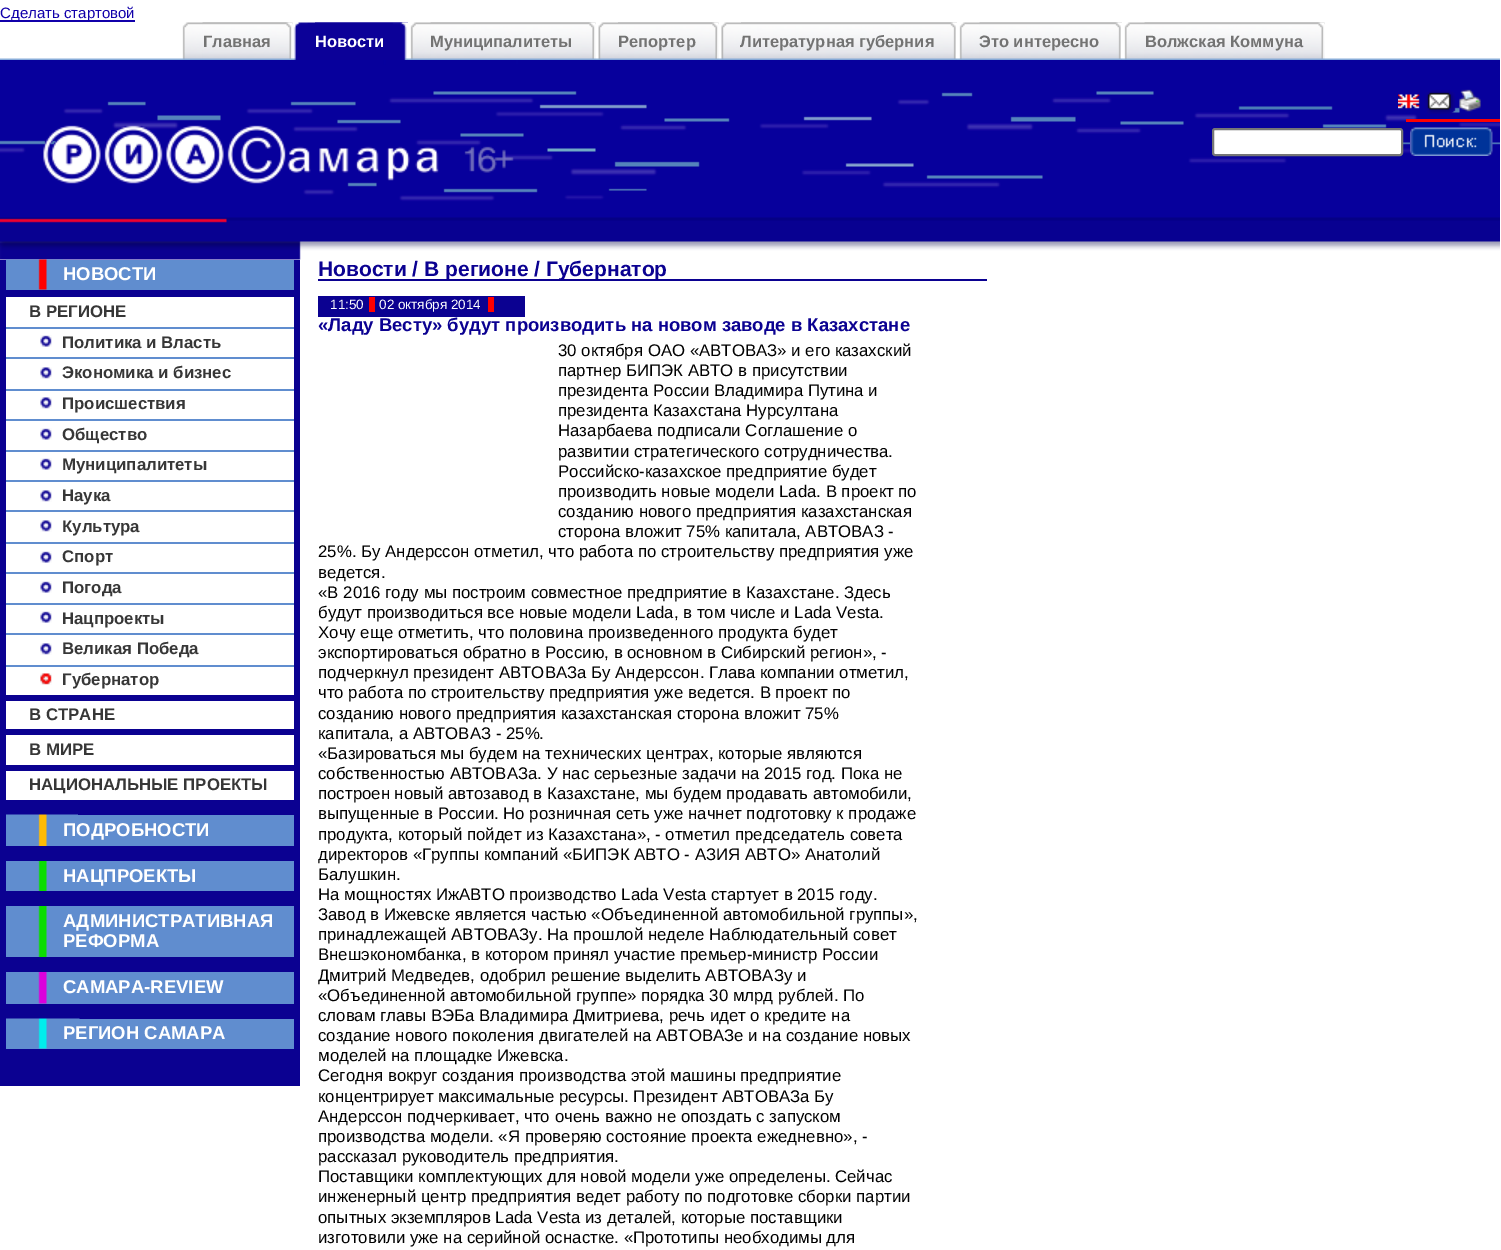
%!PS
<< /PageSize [1501 1250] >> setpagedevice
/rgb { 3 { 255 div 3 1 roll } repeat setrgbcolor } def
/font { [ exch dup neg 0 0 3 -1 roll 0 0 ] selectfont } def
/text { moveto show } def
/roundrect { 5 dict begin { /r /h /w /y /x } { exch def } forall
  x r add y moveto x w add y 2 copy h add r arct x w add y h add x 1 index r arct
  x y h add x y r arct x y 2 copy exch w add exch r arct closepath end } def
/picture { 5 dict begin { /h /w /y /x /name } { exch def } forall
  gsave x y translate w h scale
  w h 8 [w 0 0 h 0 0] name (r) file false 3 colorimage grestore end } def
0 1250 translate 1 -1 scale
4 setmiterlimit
255 255 255 rgb
0 0 1501 1250 rectfill
17 0 170 rgb
0 20 135 2 rectfill
(img_01.rgb) 0 58 1500 2 picture
(img_02.rgb) 182 22 111 38 picture
(img_03.rgb) 202 22 91 37 picture
(img_04.rgb) 293 22 115 38 picture
(img_05.rgb) 315 22 93 38 picture
(img_06.rgb) 410 22 186 38 picture
(img_07.rgb) 430 22 166 37 picture
(img_08.rgb) 598 22 121 38 picture
(img_09.rgb) 618 22 101 37 picture
(img_10.rgb) 721 22 236 38 picture
(img_11.rgb) 741 22 216 37 picture
(img_12.rgb) 959 22 163 38 picture
(img_13.rgb) 979 22 143 37 picture
(img_14.rgb) 1124 22 201 38 picture
(img_15.rgb) 1144 22 181 37 picture
8 1 145 rgb
0 220 1500 22 rectfill
(img_16.rgb) 0 60 1500 161 picture
255 0 0 rgb
1406 119 94 3 rectfill
(img_17.rgb) 1398 89 83 25 picture
255 255 255 rgb
1213 129 189 26 2 roundrect gsave fill grestore
118 118 118 rgb
2 setlinewidth
stroke
(img_18.rgb) 1410 127 83 29 picture
(img_19.rgb) 0 218 227 5 picture
(img_20.rgb) 0 241 1500 19 picture
11 1 145 rgb
0 260 300 826 rectfill
96 141 207 rgb
6 260 288 30 rectfill
(img_21.rgb) 6 259 57 31 picture
255 255 255 rgb
6 297 288 398 rectfill
(img_22.rgb) 40 335 12 12 picture
96 141 207 rgb
6 327 288 2 rectfill
(img_23.rgb) 40 367 12 12 picture
6 357 288 2 rectfill
(img_23.rgb) 40 397 12 12 picture
6 389 288 2 rectfill
(img_22.rgb) 40 428 12 12 picture
6 419 288 2 rectfill
(img_22.rgb) 40 458 12 12 picture
6 450 288 2 rectfill
(img_23.rgb) 40 490 12 12 picture
6 480 288 2 rectfill
(img_23.rgb) 40 520 12 12 picture
6 510 288 2 rectfill
(img_22.rgb) 40 551 12 12 picture
6 542 288 2 rectfill
(img_22.rgb) 40 581 12 12 picture
6 572 288 2 rectfill
(img_22.rgb) 40 611 12 12 picture
6 603 288 2 rectfill
(img_23.rgb) 40 643 12 12 picture
6 633 288 2 rectfill
(img_24.rgb) 40 673 12 12 picture
6 665 288 2 rectfill
255 255 255 rgb
6 701 288 28 rectfill
6 735 288 30 rectfill
6 771 288 29 rectfill
96 141 207 rgb
78 815 216 31 rectfill
(img_25.rgb) 6 814 72 32 picture
6 861 288 30 rectfill
(img_26.rgb) 38 861 9 30 picture
6 906 288 51 rectfill
(img_27.rgb) 38 906 9 51 picture
6 972 288 32 rectfill
(img_28.rgb) 38 972 9 32 picture
6 1019 288 30 rectfill
(img_29.rgb) 6 1018 74 31 picture
11 1 145 rgb
318 279 669 2 rectfill
318 296 207 21 rectfill
255 0 0 rgb
369 297 6 15 rectfill
488 297 6 15 rectfill
/LiberationSans-Regular 15 font
17 0 170 rgb
(Сделать стартовой) 0 18 text
/LiberationSans-Bold 16.5 font
115 115 115 rgb
(Главная) 203 47 text
255 255 255 rgb
(Новости) 315 47 text
115 115 115 rgb
(Муниципалитеты) 430 47 text
(Репортер) 618 47 text
(Литературная губерния) 740 47 text
(Это интересно) 979 47 text
(Волжская Коммуна) 1145 47 text
/LiberationSans-Bold 18.5 font
255 255 255 rgb
(НОВОСТИ) 63 280 text
/LiberationSans-Bold 16.8 font
55 55 55 rgb
(В РЕГИОНЕ) 29 317 text
(Политика и Власть) 62 348 text
(Экономика и бизнес) 62 378 text
(Происшествия) 62 409 text
(Общество) 62 440 text
(Муниципалитеты) 62 470 text
(Наука) 62 501 text
(Культура) 62 532 text
(Спорт) 62 562 text
(Погода) 62 593 text
(Нацпроекты) 62 624 text
(Великая Победа) 62 654 text
(Губернатор) 62 685 text
(В СТРАНЕ) 29 720 text
(В МИРЕ) 29 755 text
(НАЦИОНАЛЬНЫЕ ПРОЕКТЫ) 29 790 text
/LiberationSans-Bold 18.5 font
255 255 255 rgb
(ПОДРОБНОСТИ) 63 836 text
(НАЦПРОЕКТЫ) 63 882 text
(АДМИНИСТРАТИВНАЯ) 63 927 text
(РЕФОРМА) 63 947 text
(САМАРА-REVIEW) 63 993 text
(РЕГИОН САМАРА) 63 1039 text
/LiberationSans-Bold 21 font
11 1 145 rgb
(Новости / В регионе / Губернатор) 318 276 text
/LiberationSans-Regular 13.5 font
255 255 255 rgb
(11:50) 330 309 text
(02 октября 2014) 379 309 text
/LiberationSans-Bold 18.5 font
11 1 145 rgb
(«Ладу Весту» будут производить на новом заводе в Казахстане) 318 331 text
/LiberationSans-Regular 16.8 font
0 0 0 rgb
(30 октября ОАО «АВТОВАЗ» и его казахский) 558 356 text
(партнер БИПЭК АВТО в присутствии) 558 376 text
(президента России Владимира Путина и) 558 396 text
(президента Казахстана Нурсултана) 558 416 text
(Назарбаева подписали Соглашение о) 558 436 text
(развитии стратегического сотрудничества.) 558 457 text
(Российско-казахское предприятие будет) 558 477 text
(производить новые модели Lada. В проект по) 558 497 text
(созданию нового предприятия казахстанская) 558 517 text
(сторона вложит 75% капитала, АВТОВАЗ -) 558 537 text
(25%. Бу Андерссон отметил, что работа по строительству предприятия уже) 318 557 text
(ведется.) 318 578 text
(«В 2016 году мы построим совместное предприятие в Казахстане. Здесь) 318 598 text
(будут производиться все новые модели Lada, в том числе и Lada Vesta.) 318 618 text
(Хочу еще отметить, что половина произведенного продукта будет) 318 638 text
(экспортироваться обратно в Россию, в основном в Сибирский регион», -) 318 658 text
(подчеркнул президент АВТОВАЗа Бу Андерссон. Глава компании отметил,) 318 678 text
(что работа по строительству предприятия уже ведется. В проект по) 318 698 text
(созданию нового предприятия казахстанская сторона вложит 75%) 318 719 text
(капитала, а АВТОВАЗ - 25%.) 318 739 text
(«Базироваться мы будем на технических центрах, которые являются) 318 759 text
(собственностью АВТОВАЗа. У нас серьезные задачи на 2015 год. Пока не) 318 779 text
(построен новый автозавод в Казахстане, мы будем продавать автомобили,) 318 799 text
(выпущенные в России. Но розничная сеть уже начнет подготовку к продаже) 318 819 text
(продукта, который пойдет из Казахстана», - отметил председатель совета) 318 840 text
(директоров «Группы компаний «БИПЭК АВТО - АЗИЯ АВТО» Анатолий) 318 860 text
(Балушкин.) 318 880 text
(На мощностях ИжАВТО производство Lada Vesta стартует в 2015 году.) 318 900 text
(Завод в Ижевске является частью «Объединенной автомобильной группы»,) 318 920 text
(принадлежащей АВТОВАЗу. На прошлой неделе Наблюдательный совет) 318 940 text
(Внешэкономбанка, в котором принял участие премьер-министр России) 318 960 text
(Дмитрий Медведев, одобрил решение выделить АВТОВАЗу и) 318 981 text
(«Объединенной автомобильной группе» порядка 30 млрд рублей. По) 318 1001 text
(словам главы ВЭБа Владимира Дмитриева, речь идет о кредите на) 318 1021 text
(создание нового поколения двигателей на АВТОВАЗе и на создание новых) 318 1041 text
(моделей на площадке Ижевска.) 318 1061 text
(Сегодня вокруг создания производства этой машины предприятие) 318 1081 text
(концентрирует максимальные ресурсы. Президент АВТОВАЗа Бу) 318 1102 text
(Андерссон подчеркивает, что очень важно не опоздать с запуском) 318 1122 text
(производства модели. «Я проверяю состояние проекта ежедневно», -) 318 1142 text
(рассказал руководитель предприятия.) 318 1162 text
(Поставщики комплектующих для новой модели уже определены. Сейчас) 318 1182 text
(инженерный центр предприятия ведет работу по подготовке сборки партии) 318 1202 text
(опытных экземпляров Lada Vesta из деталей, которые поставщики) 318 1223 text
(изготовили уже на серийной оснастке. «Прототипы необходимы для) 318 1243 text
showpage
